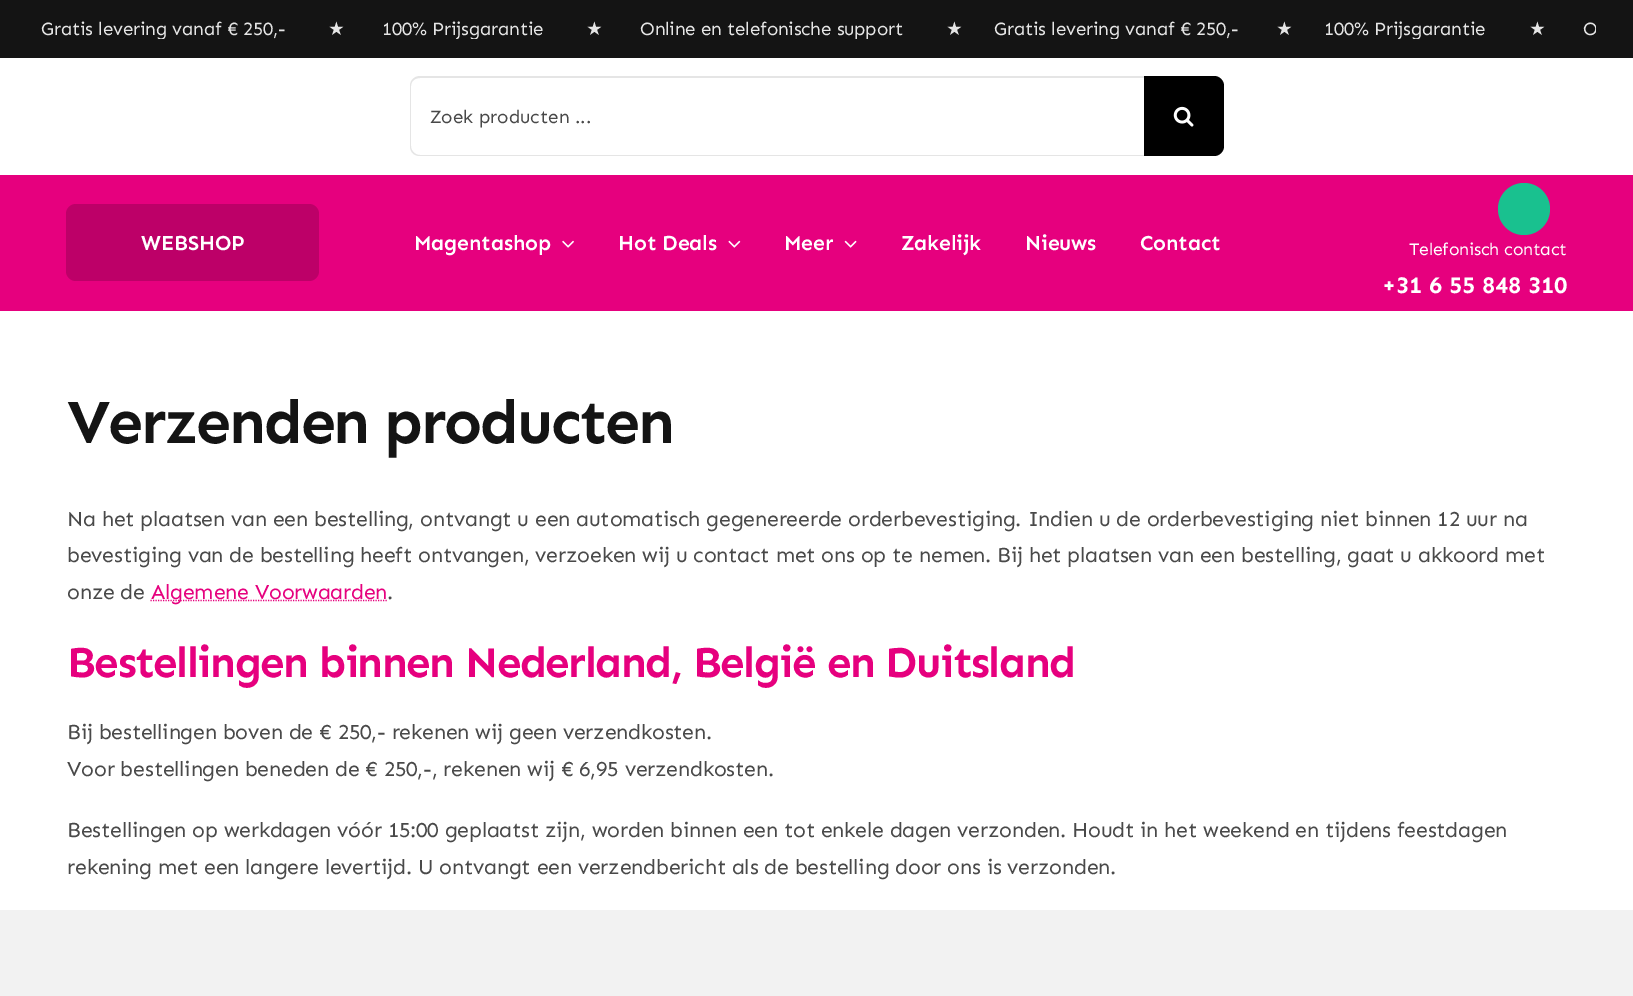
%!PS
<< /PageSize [1633 996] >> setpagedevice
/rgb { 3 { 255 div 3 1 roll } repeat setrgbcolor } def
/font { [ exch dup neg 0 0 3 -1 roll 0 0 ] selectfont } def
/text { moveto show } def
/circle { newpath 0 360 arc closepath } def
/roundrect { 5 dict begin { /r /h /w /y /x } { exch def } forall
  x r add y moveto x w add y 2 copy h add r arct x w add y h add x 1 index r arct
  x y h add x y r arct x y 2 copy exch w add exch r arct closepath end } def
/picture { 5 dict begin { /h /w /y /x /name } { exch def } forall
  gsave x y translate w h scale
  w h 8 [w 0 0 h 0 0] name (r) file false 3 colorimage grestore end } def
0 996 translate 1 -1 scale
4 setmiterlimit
255 255 255 rgb
0 0 1633 996 rectfill
20 20 20 rgb
0 0 1633 58 rectfill
229 229 229 rgb
420 76 moveto -2 0 -5 1 -6 2 rcurveto -3 2 -4 5 -4 8 rcurveto 0 60 rlineto 0 6 4 10 10 10 rcurveto 724 0 rlineto 0 -1 rlineto -724 0 rlineto -5 0 -9 -4 -9 -9 rcurveto 0 -60 rlineto 0 -5 4 -8 9 -8 rcurveto 724 0 rlineto 0 -2 rlineto closepath fill
0 0 0 rgb
1144 76 moveto 70 0 rlineto 5.5 0 10 4.5 10 10 rcurveto 0 60 rlineto 0 5.5 -4.5 10 -10 10 rcurveto -70 0 rlineto closepath fill
(img_01.rgb) 1173 106 21 21 picture
230 0 126 rgb
0 175 1633 136 rectfill
189 0 104 rgb
66 204 253 77 10 roundrect fill
(img_02.rgb) 562 240 12 8 picture
(img_03.rgb) 728 240 13 8 picture
(img_04.rgb) 844 240 13 8 picture
25 193 143 rgb
1524 209 26 circle fill
230 0 126 rgb
1.2 setlinewidth
[1.25 1.25] 0 setdash
150.5 600.5 moveto 236.5 0 rlineto stroke
242 242 242 rgb
0 910 1633 86 rectfill
gsave
38 20 1558 19 rectclip
/Sen-Regular 18.75 font
229 229 229 rgb
41 35 moveto -0.2 0 (Gratis levering vanaf € 250,-) ashow
grestore
/DejaVuSans-Regular 18.75 font
229 229 229 rgb
328 35 moveto -0.2 0 (★) ashow
gsave
38 20 1558 19 rectclip
/Sen-Regular 18.75 font
382 35 moveto -0.2 0 (100% Prijsgarantie) ashow
grestore
586 35 moveto -0.2 0 (★) ashow
gsave
38 20 1558 19 rectclip
/Sen-Regular 18.75 font
640 35 moveto -0.2 0 (Online en telefonische support) ashow
grestore
946 35 moveto -0.2 0 (★) ashow
gsave
38 20 1558 19 rectclip
/Sen-Regular 18.75 font
994 35 moveto -0.2 0 (Gratis levering vanaf € 250,-) ashow
grestore
1276 35 moveto -0.2 0 (★) ashow
gsave
38 20 1558 19 rectclip
/Sen-Regular 18.75 font
1324 35 moveto -0.2 0 (100% Prijsgarantie) ashow
grestore
1529 35 moveto -0.2 0 (★) ashow
gsave
38 20 1558 19 rectclip
/Sen-Regular 18.75 font
1583 35 moveto -0.2 0 (O) ashow
grestore
/Sen-Regular 18.75 font
73 73 73 rgb
(Zoek producten ...) 430 123 text
/Sen-SemiBold 21.25 font
255 255 255 rgb
141 250 moveto -0.21 0 (WEBSHOP) ashow
414 250 moveto -0.21 0 (Magentashop) ashow
618 250 moveto -0.21 0 (Hot Deals) ashow
784 250 moveto -0.21 0 (Meer) ashow
901 250 moveto -0.21 0 (Zakelijk) ashow
1025 250 moveto -0.21 0 (Nieuws) ashow
1140 250 moveto -0.21 0 (Contact) ashow
/Sen-Regular 17.5 font
1409 255 moveto -0.21 0 (Telefonisch contact) ashow
/Sen-Bold 23.75 font
1382 293 moveto -0.21 0 (+31 6 55 848 310) ashow
/Sen-Bold 62.5 font
20 20 20 rgb
67 443 moveto -2.2 0 (Verzenden producten) ashow
/Sen-Regular 21.25 font
73 73 73 rgb
67 526 moveto -0.21 0 (Na het plaatsen van een bestelling, ontvangt u een automatisch gegenereerde orderbevestiging. Indien u de orderbevestiging niet binnen 12 uur na) ashow
67 562 moveto -0.21 0 (bevestiging van de bestelling heeft ontvangen, verzoeken wij u contact met ons op te nemen. Bij het plaatsen van een bestelling, gaat u akkoord met) ashow
67 599 moveto -0.21 0 (onze de) ashow
230 0 126 rgb
151 599 moveto -0.21 0 (Algemene Voorwaarden) ashow
73 73 73 rgb
387 599 moveto -0.21 0 (.) ashow
/Sen-Bold 43.75 font
230 0 126 rgb
67 677 moveto -1.53 0 (Bestellingen binnen Nederland, België en Duitsland) ashow
/Sen-Regular 21.25 font
73 73 73 rgb
67 739 moveto -0.21 0 (Bij bestellingen boven de € 250,- rekenen wij geen verzendkosten.) ashow
67 776 moveto -0.21 0 (Voor bestellingen beneden de € 250,-, rekenen wij € 6,95 verzendkosten.) ashow
67 837 moveto -0.21 0 (Bestellingen op werkdagen vóór 15:00 geplaatst zijn, worden binnen een tot enkele dagen verzonden. Houdt in het weekend en tijdens feestdagen) ashow
67 874 moveto -0.21 0 (rekening met een langere levertijd. U ontvangt een verzendbericht als de bestelling door ons is verzonden.) ashow
showpage
